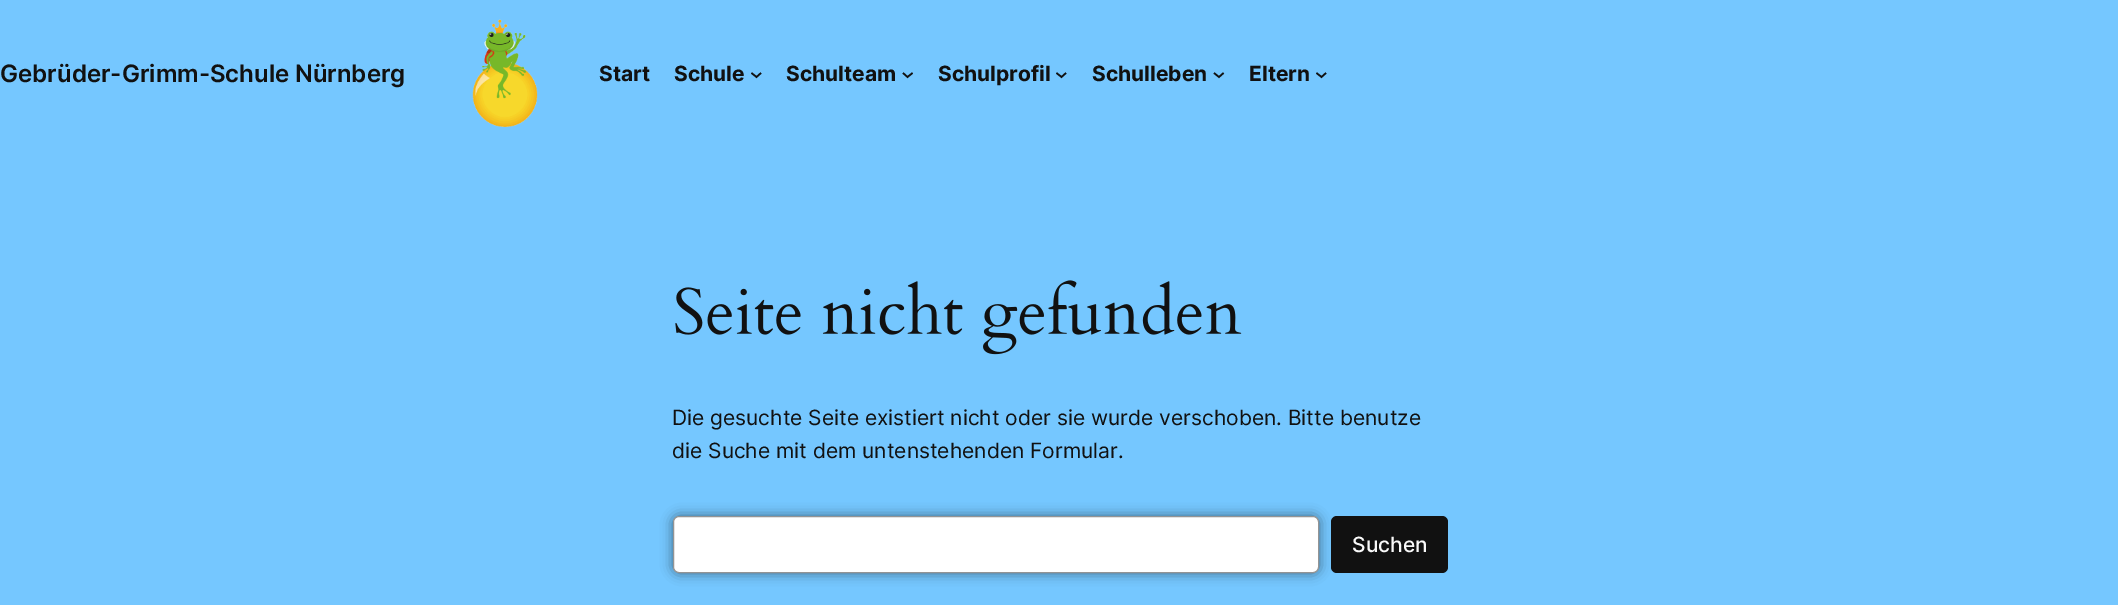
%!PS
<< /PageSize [2118 605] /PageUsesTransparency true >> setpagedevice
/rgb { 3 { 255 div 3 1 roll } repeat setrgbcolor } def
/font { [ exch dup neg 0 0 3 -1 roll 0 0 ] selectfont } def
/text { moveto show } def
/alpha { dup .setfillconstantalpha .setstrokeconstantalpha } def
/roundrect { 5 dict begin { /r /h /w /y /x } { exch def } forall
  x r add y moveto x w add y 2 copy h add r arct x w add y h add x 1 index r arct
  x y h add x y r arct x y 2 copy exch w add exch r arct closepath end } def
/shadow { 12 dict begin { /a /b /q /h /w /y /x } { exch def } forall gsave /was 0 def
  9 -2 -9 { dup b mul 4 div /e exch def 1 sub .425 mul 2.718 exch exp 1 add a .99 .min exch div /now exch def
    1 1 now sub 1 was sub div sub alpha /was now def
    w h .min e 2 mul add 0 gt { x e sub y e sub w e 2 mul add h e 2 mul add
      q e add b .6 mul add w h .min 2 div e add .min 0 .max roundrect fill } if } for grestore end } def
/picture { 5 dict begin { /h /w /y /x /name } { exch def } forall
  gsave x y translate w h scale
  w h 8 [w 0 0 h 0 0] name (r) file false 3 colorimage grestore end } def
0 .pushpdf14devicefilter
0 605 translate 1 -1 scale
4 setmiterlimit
117 199 255 rgb
0 0 2118 605 rectfill
(img_01.rgb) 472 19 66 108 picture
17 17 17 rgb
1.6 setlinewidth
751.5 73 moveto 5 4 rlineto 4.5 -4 rlineto stroke
903 73 moveto 4.5 4 rlineto 5 -4 rlineto stroke
1056.5 73 moveto 5 4 rlineto 4.5 -4 rlineto stroke
1214 73 moveto 5 4 rlineto 4.5 -4 rlineto stroke
1316.5 73 moveto 5 4 rlineto 4.5 -4 rlineto stroke
(img_02.rgb) 675 280 567 75 picture
0 0 0 rgb
673 516 646 57 6 6 0.5 shadow
255 255 255 rgb
673.5 516.5 645 56 5.5 roundrect gsave fill grestore
148 148 148 rgb
1 setlinewidth
stroke
17 17 17 rgb
1331 516 117 57 6 roundrect fill
/Inter-SemiBold 24 font
(Gebrüder-Grimm-Schule Nürnberg) 0 82 text
/Inter-Bold 21 font
(Start) 599 81 text
(Schule) 674 81 text
(Schulteam) 786 81 text
(Schulprofil) 938 81 text
(Schulleben) 1092 81 text
(Eltern) 1249 81 text
/Inter-Regular 21 font
(Die gesuchte Seite existiert nicht oder sie wurde verschoben. Bitte benutze) 672 425 text
(die Suche mit dem untenstehenden Formular.) 672 458 text
/Inter-Medium 21 font
249 249 249 rgb
(Suchen) 1352 552 text
.poppdf14devicefilter showpage
